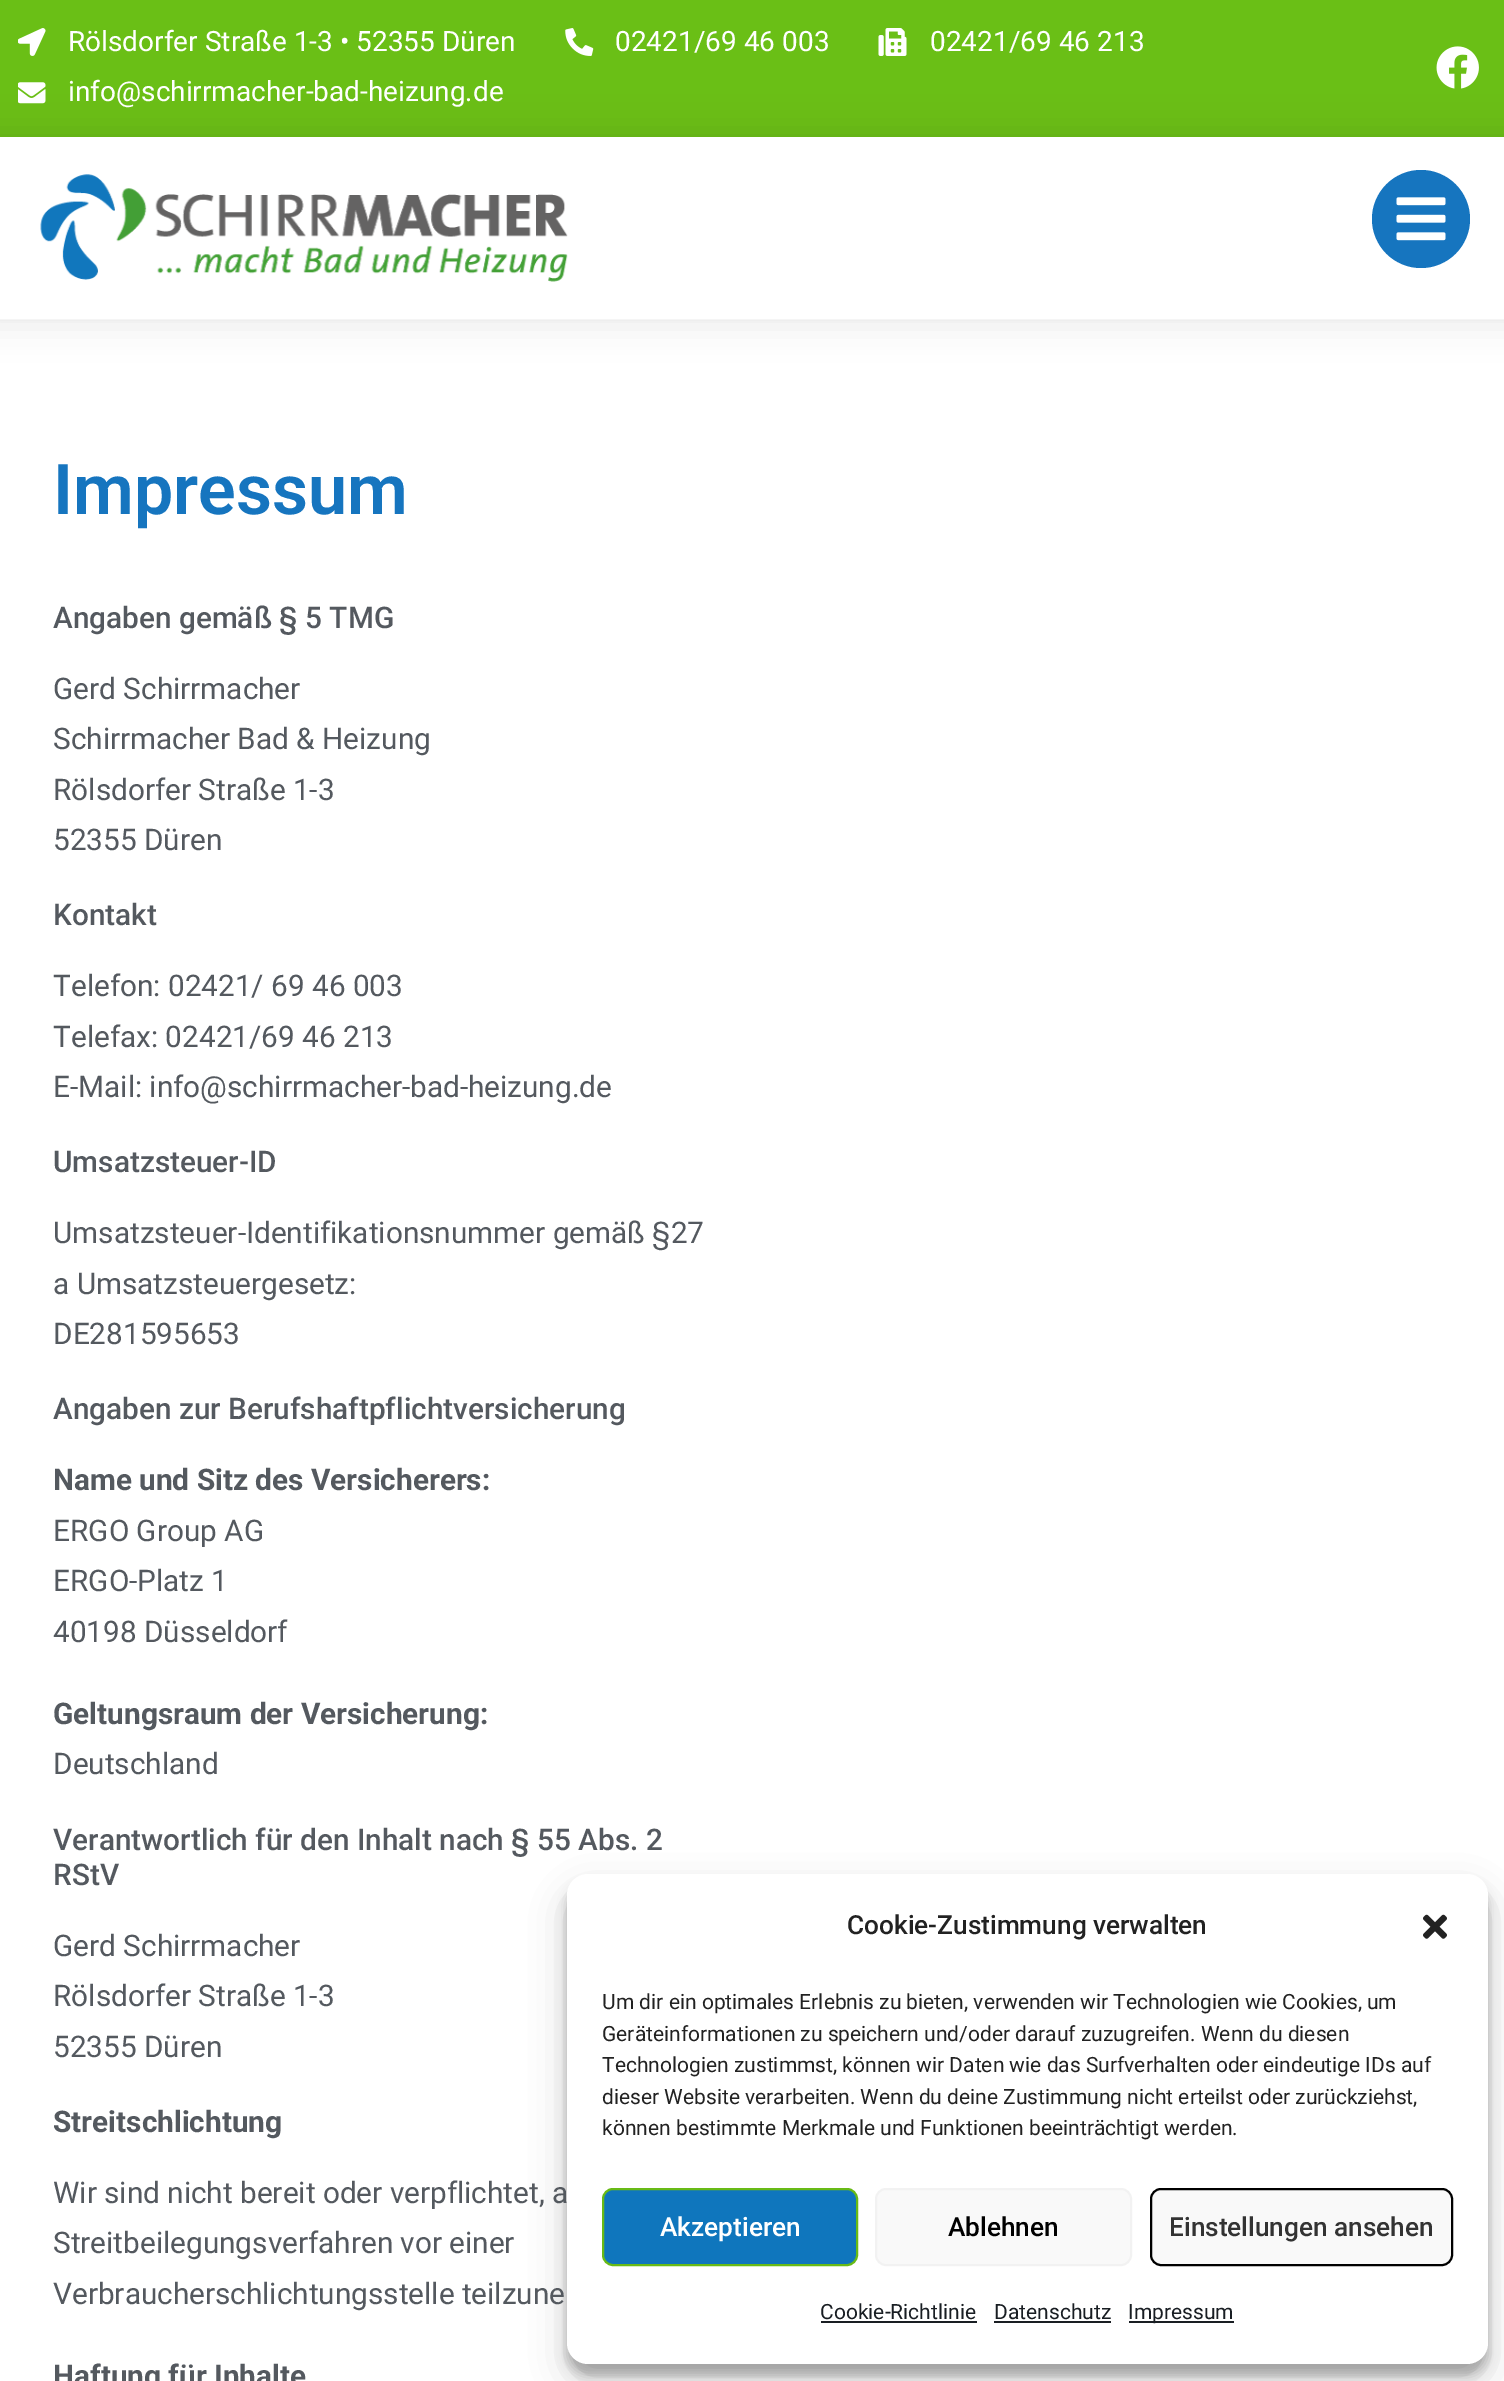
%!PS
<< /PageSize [1504 2381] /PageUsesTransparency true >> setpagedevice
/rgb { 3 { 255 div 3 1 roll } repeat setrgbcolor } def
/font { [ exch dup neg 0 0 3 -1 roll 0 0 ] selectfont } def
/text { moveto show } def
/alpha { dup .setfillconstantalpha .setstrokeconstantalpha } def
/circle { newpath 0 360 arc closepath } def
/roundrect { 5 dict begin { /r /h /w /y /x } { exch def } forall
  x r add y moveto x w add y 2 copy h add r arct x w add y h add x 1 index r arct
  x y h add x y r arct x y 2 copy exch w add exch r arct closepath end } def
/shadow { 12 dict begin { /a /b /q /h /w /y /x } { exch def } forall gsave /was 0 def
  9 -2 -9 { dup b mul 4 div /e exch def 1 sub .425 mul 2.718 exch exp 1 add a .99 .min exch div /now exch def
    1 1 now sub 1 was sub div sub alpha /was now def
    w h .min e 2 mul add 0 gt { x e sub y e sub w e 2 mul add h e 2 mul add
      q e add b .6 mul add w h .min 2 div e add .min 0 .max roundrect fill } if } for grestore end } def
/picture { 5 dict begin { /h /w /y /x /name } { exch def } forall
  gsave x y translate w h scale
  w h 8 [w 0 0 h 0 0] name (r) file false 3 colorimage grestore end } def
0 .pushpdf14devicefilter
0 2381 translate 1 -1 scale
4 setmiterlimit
255 255 255 rgb
0 0 1504 2381 rectfill
106 191 22 rgb
0 0 1504 137 rectfill
(img_01.rgb) 18 28 28 28 picture
(img_02.rgb) 565 28 29 28 picture
(img_03.rgb) 878 28 29 28 picture
(img_04.rgb) 18 82 28 22 picture
(img_05.rgb) 1436 46 43 43 picture
gsave
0 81 moveto 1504 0 rlineto 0 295 rlineto -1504 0 rlineto closepath 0 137 moveto 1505 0 rlineto 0 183 rlineto -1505 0 rlineto closepath eoclip newpath
0 0 0 rgb
-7 130 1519 197 0 16 0.07 shadow
grestore
0.51 alpha
235 235 235 rgb
0 319 1504 2 rectfill
1 alpha
(img_06.rgb) 40 174 528 108 picture
22 117 191 rgb
1421 219 49 circle fill
(img_07.rgb) 1396 197 50 44 picture
0 0 0 rgb
567 1885 921 490 21 5 0.23 shadow
567 1892 921 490 21 17.5 0.19 shadow
255 255 255 rgb
567 1874 921 490 21 roundrect fill
(img_08.rgb) 1423 1914 24 25 picture
15 118 189 rgb
603 2189 254 76 10 roundrect gsave fill grestore
104 186 22 rgb
2 setlinewidth
stroke
249 249 249 rgb
876 2189 255 76 10 roundrect gsave fill grestore
242 242 242 rgb
stroke
249 249 249 rgb
1151 2189 301 76 10 roundrect gsave fill grestore
0 0 0 rgb
stroke
25 30 35 rgb
821 2321 156 2 rectfill
994 2321 117 2 rectfill
1129 2321 105 2 rectfill
/Roboto-Regular 28 font
255 255 255 rgb
(Rölsdorfer Straße 1-3 • 52355 Düren) 68 51 text
(02421/69 46 003) 615 51 text
(02421/69 46 213) 930 51 text
(info@schirrmacher-bad-heizung.de) 68 101 text
/Roboto-SemiBold 70 font
22 117 191 rgb
(Impressum) 53 514 text
/Roboto-Medium 29.75 font
84 89 95 rgb
(Angaben gemäß § 5 TMG) 53 628 text
/Roboto-Regular 29.75 font
(Gerd Schirrmacher) 53 699 text
(Schirrmacher Bad & Heizung) 53 749 text
(Rölsdorfer Straße 1-3) 53 800 text
(52355 Düren) 53 850 text
/Roboto-Medium 29.75 font
(Kontakt) 53 925 text
/Roboto-Regular 29.75 font
(Telefon: 02421/ 69 46 003) 53 996 text
(Telefax: 02421/69 46 213) 53 1047 text
(E-Mail: info@schirrmacher-bad-heizung.de) 53 1097 text
/Roboto-Medium 29.75 font
(Umsatzsteuer-ID) 53 1172 text
/Roboto-Regular 29.75 font
(Umsatzsteuer-Identifikationsnummer gemäß §27) 53 1243 text
(a Umsatzsteuergesetz:) 53 1294 text
(DE281595653) 53 1344 text
/Roboto-Medium 29.75 font
(Angaben zur Berufshaftpflichtversicherung) 53 1419 text
/Roboto-Bold 29.75 font
(Name und Sitz des Versicherers:) 53 1490 text
/Roboto-Regular 29.75 font
(ERGO Group AG) 53 1541 text
(ERGO-Platz 1) 53 1591 text
(40198 Düsseldorf) 53 1642 text
/Roboto-Bold 29.75 font
(Geltungsraum der Versicherung:) 53 1724 text
/Roboto-Regular 29.75 font
(Deutschland) 53 1774 text
/Roboto-Medium 29.75 font
(Verantwortlich für den Inhalt nach § 55 Abs. 2) 53 1850 text
(RStV) 53 1885 text
/Roboto-Regular 29.75 font
(Gerd Schirrmacher) 53 1956 text
(Rölsdorfer Straße 1-3) 53 2006 text
(52355 Düren) 53 2057 text
/Roboto-Bold 29.75 font
(Streitschlichtung) 53 2132 text
/Roboto-Regular 29.75 font
(Wir sind nicht bereit oder verpflichtet, a) 53 2203 text
(Streitbeilegungsverfahren vor einer) 53 2253 text
(Verbraucherschlichtungsstelle teilzune) 53 2304 text
/Roboto-Bold 29.75 font
(Haftung für Inhalte) 53 2386 text
/Roboto-Medium 26.25 font
34 34 34 rgb
(Cookie-Zustimmung verwalten) 847 1934 text
/Roboto-Regular 21 font
(Um dir ein optimales Erlebnis zu bieten, verwenden wir Technologien wie Cookies, um) 602 2009 text
(Geräteinformationen zu speichern und/oder darauf zuzugreifen. Wenn du diesen) 602 2041 text
(Technologien zustimmst, können wir Daten wie das Surfverhalten oder eindeutige IDs auf) 602 2072 text
(dieser Website verarbeiten. Wenn du deine Zustimmung nicht erteilst oder zurückziehst,) 602 2104 text
(können bestimmte Merkmale und Funktionen beeinträchtigt werden.) 602 2135 text
/Roboto-Medium 26.25 font
255 255 255 rgb
(Akzeptieren) 660 2236 text
0 0 0 rgb
(Ablehnen) 948 2236 text
51 51 51 rgb
(Einstellungen ansehen) 1169 2236 text
/Roboto-Regular 21 font
25 30 35 rgb
(Cookie-Richtlinie) 820 2319 text
(Datenschutz) 994 2319 text
(Impressum) 1128 2319 text
.poppdf14devicefilter showpage
